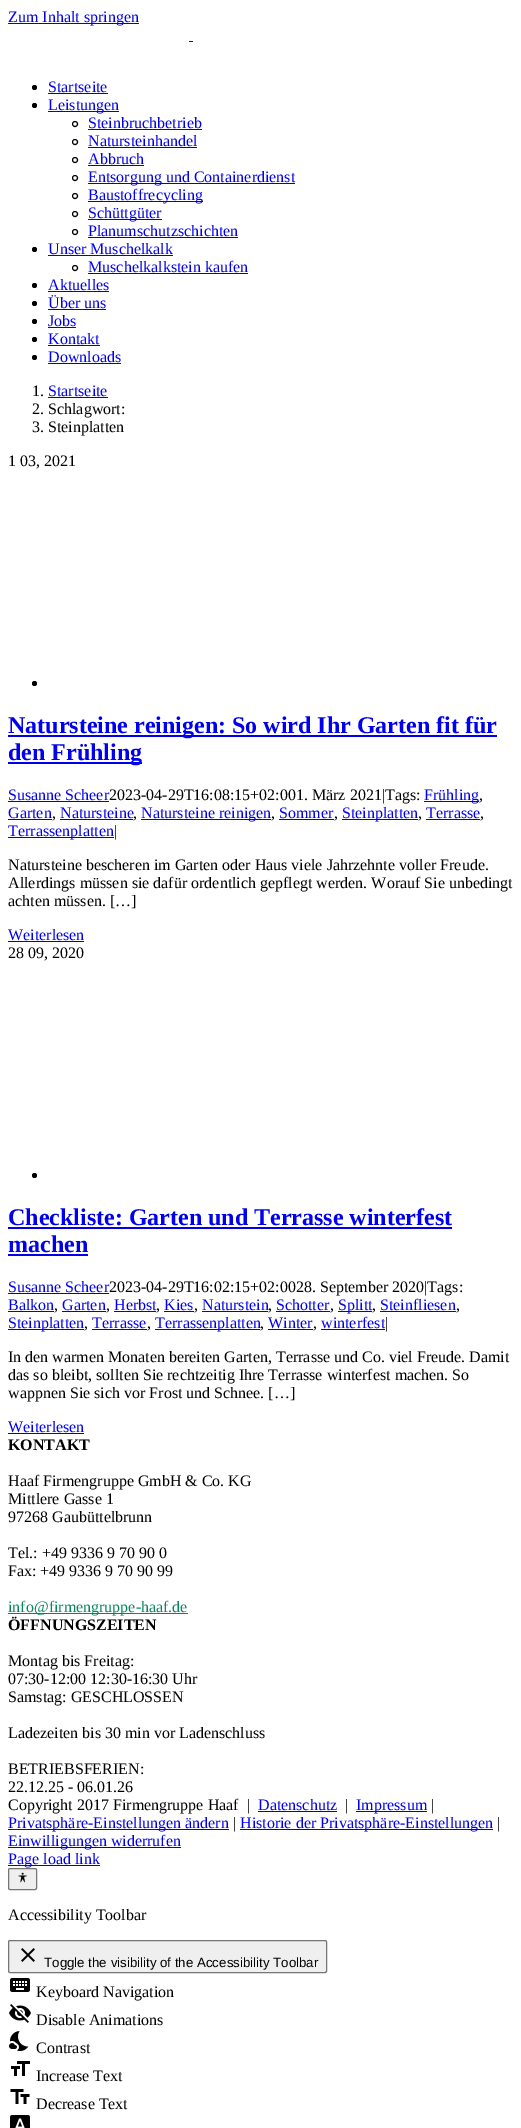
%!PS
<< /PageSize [521 2128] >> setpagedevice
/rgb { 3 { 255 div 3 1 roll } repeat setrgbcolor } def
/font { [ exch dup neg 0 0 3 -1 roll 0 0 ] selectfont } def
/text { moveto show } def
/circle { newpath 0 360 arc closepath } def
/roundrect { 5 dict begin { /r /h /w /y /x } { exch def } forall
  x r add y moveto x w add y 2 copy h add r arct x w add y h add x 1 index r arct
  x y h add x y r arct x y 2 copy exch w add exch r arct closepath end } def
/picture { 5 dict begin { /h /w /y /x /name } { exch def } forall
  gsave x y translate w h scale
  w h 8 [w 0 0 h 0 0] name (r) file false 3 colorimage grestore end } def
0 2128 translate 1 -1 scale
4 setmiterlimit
255 255 255 rgb
0 0 521 2128 rectfill
0 0 238 rgb
8 23 131 1 rectfill
189 41 4 1 rectfill
0 0 0 rgb
34.5 87.5 2.5 circle fill
0 0 238 rgb
48 93 60 1 rectfill
0 0 0 rgb
34.5 105.5 2.5 circle fill
0 0 238 rgb
48 111 71 1 rectfill
0 0 0 rgb
75 124 2.5 circle stroke
0 0 238 rgb
88 129 114 1 rectfill
0 0 0 rgb
75 142 2.5 circle stroke
0 0 238 rgb
88 147 109 1 rectfill
0 0 0 rgb
75 160 2.5 circle stroke
0 0 238 rgb
88 165 56 1 rectfill
0 0 0 rgb
75 178 2.5 circle stroke
0 0 238 rgb
88 183 207 1 rectfill
0 0 0 rgb
75 196 2.5 circle stroke
0 0 238 rgb
88 201 115 1 rectfill
0 0 0 rgb
75 214 2.5 circle stroke
0 0 238 rgb
88 219 74 1 rectfill
0 0 0 rgb
75 232 2.5 circle stroke
0 0 238 rgb
88 237 150 1 rectfill
0 0 0 rgb
34.5 249.5 2.5 circle fill
0 0 238 rgb
48 255 125 1 rectfill
0 0 0 rgb
75 268 2.5 circle stroke
0 0 238 rgb
88 273 160 1 rectfill
0 0 0 rgb
34.5 285.5 2.5 circle fill
0 0 238 rgb
48 291 61 1 rectfill
0 0 0 rgb
34.5 303.5 2.5 circle fill
0 0 238 rgb
48 309 58 1 rectfill
0 0 0 rgb
34.5 321.5 2.5 circle fill
0 0 238 rgb
48 327 28 1 rectfill
0 0 0 rgb
34.5 339.5 2.5 circle fill
0 0 238 rgb
48 345 52 1 rectfill
0 0 0 rgb
34.5 357.5 2.5 circle fill
0 0 238 rgb
48 363 73 1 rectfill
48 397 60 1 rectfill
0 0 0 rgb
34.5 683.5 2.5 circle fill
0 0 238 rgb
8 735 489 2 rectfill
8 762 134 2 rectfill
8 801 101 1 rectfill
424 801 55 1 rectfill
8 819 44 1 rectfill
60 819 73 1 rectfill
141 819 130 1 rectfill
279 819 55 1 rectfill
342 819 76 1 rectfill
426 819 54 1 rectfill
8 837 106 1 rectfill
8 941 76 1 rectfill
0 0 0 rgb
34.5 1175.5 2.5 circle fill
0 0 238 rgb
8 1227 444 2 rectfill
8 1254 80 2 rectfill
8 1293 101 1 rectfill
8 1311 46 1 rectfill
62 1311 44 1 rectfill
114 1311 42 1 rectfill
164 1311 30 1 rectfill
202 1311 66 1 rectfill
276 1311 54 1 rectfill
338 1311 34 1 rectfill
380 1311 76 1 rectfill
8 1329 76 1 rectfill
92 1329 55 1 rectfill
155 1329 105 1 rectfill
268 1329 45 1 rectfill
321 1329 64 1 rectfill
8 1433 76 1 rectfill
8 135 92 rgb
8 1613 180 1 rectfill
0 0 238 rgb
258 1811 79 1 rectfill
356 1811 71 1 rectfill
8 1829 221 1 rectfill
240 1829 253 1 rectfill
8 1847 173 1 rectfill
8 1865 92 1 rectfill
239 239 239 rgb
8.5 1868.5 28 21 1.5 roundrect gsave fill grestore
118 118 118 rgb
stroke
(img_01.rgb) 18 1872 9 11 picture
239 239 239 rgb
8.5 1940.5 318 32 1.5 roundrect gsave fill grestore
118 118 118 rgb
stroke
(img_02.rgb) 21 1948 14 14 picture
(img_03.rgb) 10 1978 20 14 picture
(img_04.rgb) 9 2004 22 19 picture
(img_05.rgb) 9 2031 20 20 picture
(img_06.rgb) 11 2061 19 15 picture
(img_07.rgb) 10 2089 20 15 picture
(img_08.rgb) 10 2115 20 13 picture
/LiberationSerif-Regular 16 font
0 0 238 rgb
(Zum Inhalt springen) 8 22 text
(Startseite) 48 92 text
(Leistungen) 48 110 text
(Steinbruchbetrieb) 88 128 text
(Natursteinhandel) 88 146 text
(Abbruch) 88 164 text
(Entsorgung und Containerdienst) 88 182 text
(Baustoffrecycling) 88 200 text
(Schüttgüter) 88 218 text
(Planumschutzschichten) 88 236 text
(Unser Muschelkalk) 48 254 text
(Muschelkalkstein kaufen) 88 272 text
(Aktuelles) 48 290 text
(Über uns) 48 308 text
(Jobs) 48 326 text
(Kontakt) 48 344 text
(Downloads) 48 362 text
0 0 0 rgb
(1.) 32 396 text
0 0 238 rgb
(Startseite) 48 396 text
0 0 0 rgb
(2. Schlagwort:) 32 414 text
(3. Steinplatten) 32 432 text
(1 03, 2021) 8 466 text
/LiberationSerif-Bold 24 font
0 0 238 rgb
(Natursteine reinigen: So wird Ihr Garten fit für) 8 733 text
(den Frühling) 8 760 text
/LiberationSerif-Regular 16 font
(Susanne Scheer) 8 800 text
0 0 0 rgb
(2023-04-29T16:08:15+02:001. März 2021|Tags:) 109 800 text
0 0 238 rgb
(Frühling) 424 800 text
0 0 0 rgb
(,) 479 800 text
0 0 238 rgb
(Garten) 8 818 text
0 0 0 rgb
(,) 52 818 text
0 0 238 rgb
(Natursteine) 60 818 text
0 0 0 rgb
(,) 133 818 text
0 0 238 rgb
(Natursteine reinigen) 141 818 text
0 0 0 rgb
(,) 271 818 text
0 0 238 rgb
(Sommer) 279 818 text
0 0 0 rgb
(,) 334 818 text
0 0 238 rgb
(Steinplatten) 342 818 text
0 0 0 rgb
(,) 418 818 text
0 0 238 rgb
(Terrasse) 426 818 text
0 0 0 rgb
(,) 480 818 text
0 0 238 rgb
(Terrassenplatten) 8 836 text
0 0 0 rgb
(|) 114 836 text
(Natursteine bescheren im Garten oder Haus viele Jahrzehnte voller Freude.) 8 870 text
(Allerdings müssen sie dafür ordentlich gepflegt werden. Worauf Sie unbedingt) 8 888 text
(achten müssen. […]) 8 906 text
0 0 238 rgb
(Weiterlesen) 8 940 text
0 0 0 rgb
(28 09, 2020) 8 958 text
/LiberationSerif-Bold 24 font
0 0 238 rgb
(Checkliste: Garten und Terrasse winterfest) 8 1225 text
(machen) 8 1252 text
/LiberationSerif-Regular 16 font
(Susanne Scheer) 8 1292 text
0 0 0 rgb
(2023-04-29T16:02:15+02:0028. September 2020|Tags:) 109 1292 text
0 0 238 rgb
(Balkon) 8 1310 text
0 0 0 rgb
(,) 54 1310 text
0 0 238 rgb
(Garten) 62 1310 text
0 0 0 rgb
(,) 106 1310 text
0 0 238 rgb
(Herbst) 114 1310 text
0 0 0 rgb
(,) 156 1310 text
0 0 238 rgb
(Kies) 164 1310 text
0 0 0 rgb
(,) 194 1310 text
0 0 238 rgb
(Naturstein) 202 1310 text
0 0 0 rgb
(,) 268 1310 text
0 0 238 rgb
(Schotter) 276 1310 text
0 0 0 rgb
(,) 330 1310 text
0 0 238 rgb
(Splitt) 338 1310 text
0 0 0 rgb
(,) 372 1310 text
0 0 238 rgb
(Steinfliesen) 380 1310 text
0 0 0 rgb
(,) 456 1310 text
0 0 238 rgb
(Steinplatten) 8 1328 text
0 0 0 rgb
(,) 84 1328 text
0 0 238 rgb
(Terrasse) 92 1328 text
0 0 0 rgb
(,) 147 1328 text
0 0 238 rgb
(Terrassenplatten) 155 1328 text
0 0 0 rgb
(,) 260 1328 text
0 0 238 rgb
(Winter) 268 1328 text
0 0 0 rgb
(,) 313 1328 text
0 0 238 rgb
(winterfest) 321 1328 text
0 0 0 rgb
(|) 385 1328 text
(In den warmen Monaten bereiten Garten, Terrasse und Co. viel Freude. Damit) 8 1362 text
(das so bleibt, sollten Sie rechtzeitig Ihre Terrasse winterfest machen. So) 8 1380 text
(wappnen Sie sich vor Frost und Schnee. […]) 8 1398 text
0 0 238 rgb
(Weiterlesen) 8 1432 text
/LiberationSerif-Bold 16 font
0 0 0 rgb
(KONTAKT) 8 1450 text
/LiberationSerif-Regular 16 font
(Haaf Firmengruppe GmbH & Co. KG) 8 1486 text
(Mittlere Gasse 1) 8 1504 text
(97268 Gaubüttelbrunn) 8 1522 text
(Tel.: +49 9336 9 70 90 0) 8 1558 text
(Fax: +49 9336 9 70 90 99) 8 1576 text
8 135 92 rgb
(info@firmengruppe-haaf.de) 8 1612 text
/LiberationSerif-Bold 16 font
0 0 0 rgb
(ÖFFNUNGSZEITEN) 8 1630 text
/LiberationSerif-Regular 16 font
(Montag bis Freitag:) 8 1666 text
(07:30-12:00 12:30-16:30 Uhr) 8 1684 text
(Samstag: GESCHLOSSEN) 8 1702 text
(Ladezeiten bis 30 min vor Ladenschluss) 8 1738 text
(BETRIEBSFERIEN:) 8 1774 text
(22.12.25 - 06.01.26) 8 1792 text
(Copyright 2017 Firmengruppe Haaf  |) 8 1810 text
0 0 238 rgb
(Datenschutz) 258 1810 text
0 0 0 rgb
(|) 345 1810 text
0 0 238 rgb
(Impressum) 356 1810 text
0 0 0 rgb
(|) 431 1810 text
0 0 238 rgb
(Privatsphäre-Einstellungen ändern) 8 1828 text
0 0 0 rgb
(|) 233 1828 text
0 0 238 rgb
(Historie der Privatsphäre-Einstellungen) 240 1828 text
0 0 0 rgb
(|) 497 1828 text
0 0 238 rgb
(Einwilligungen widerrufen) 8 1846 text
(Page load link) 8 1864 text
0 0 0 rgb
(Accessibility Toolbar) 8 1920 text
/LiberationSans-Regular 13.3 font
(Toggle the visibility of the Accessibility Toolbar) 44 1967 text
/LiberationSerif-Regular 16 font
(Keyboard Navigation) 36 1997 text
(Disable Animations) 36 2025 text
(Contrast) 36 2053 text
(Increase Text) 36 2081 text
(Decrease Text) 36 2109 text
showpage
